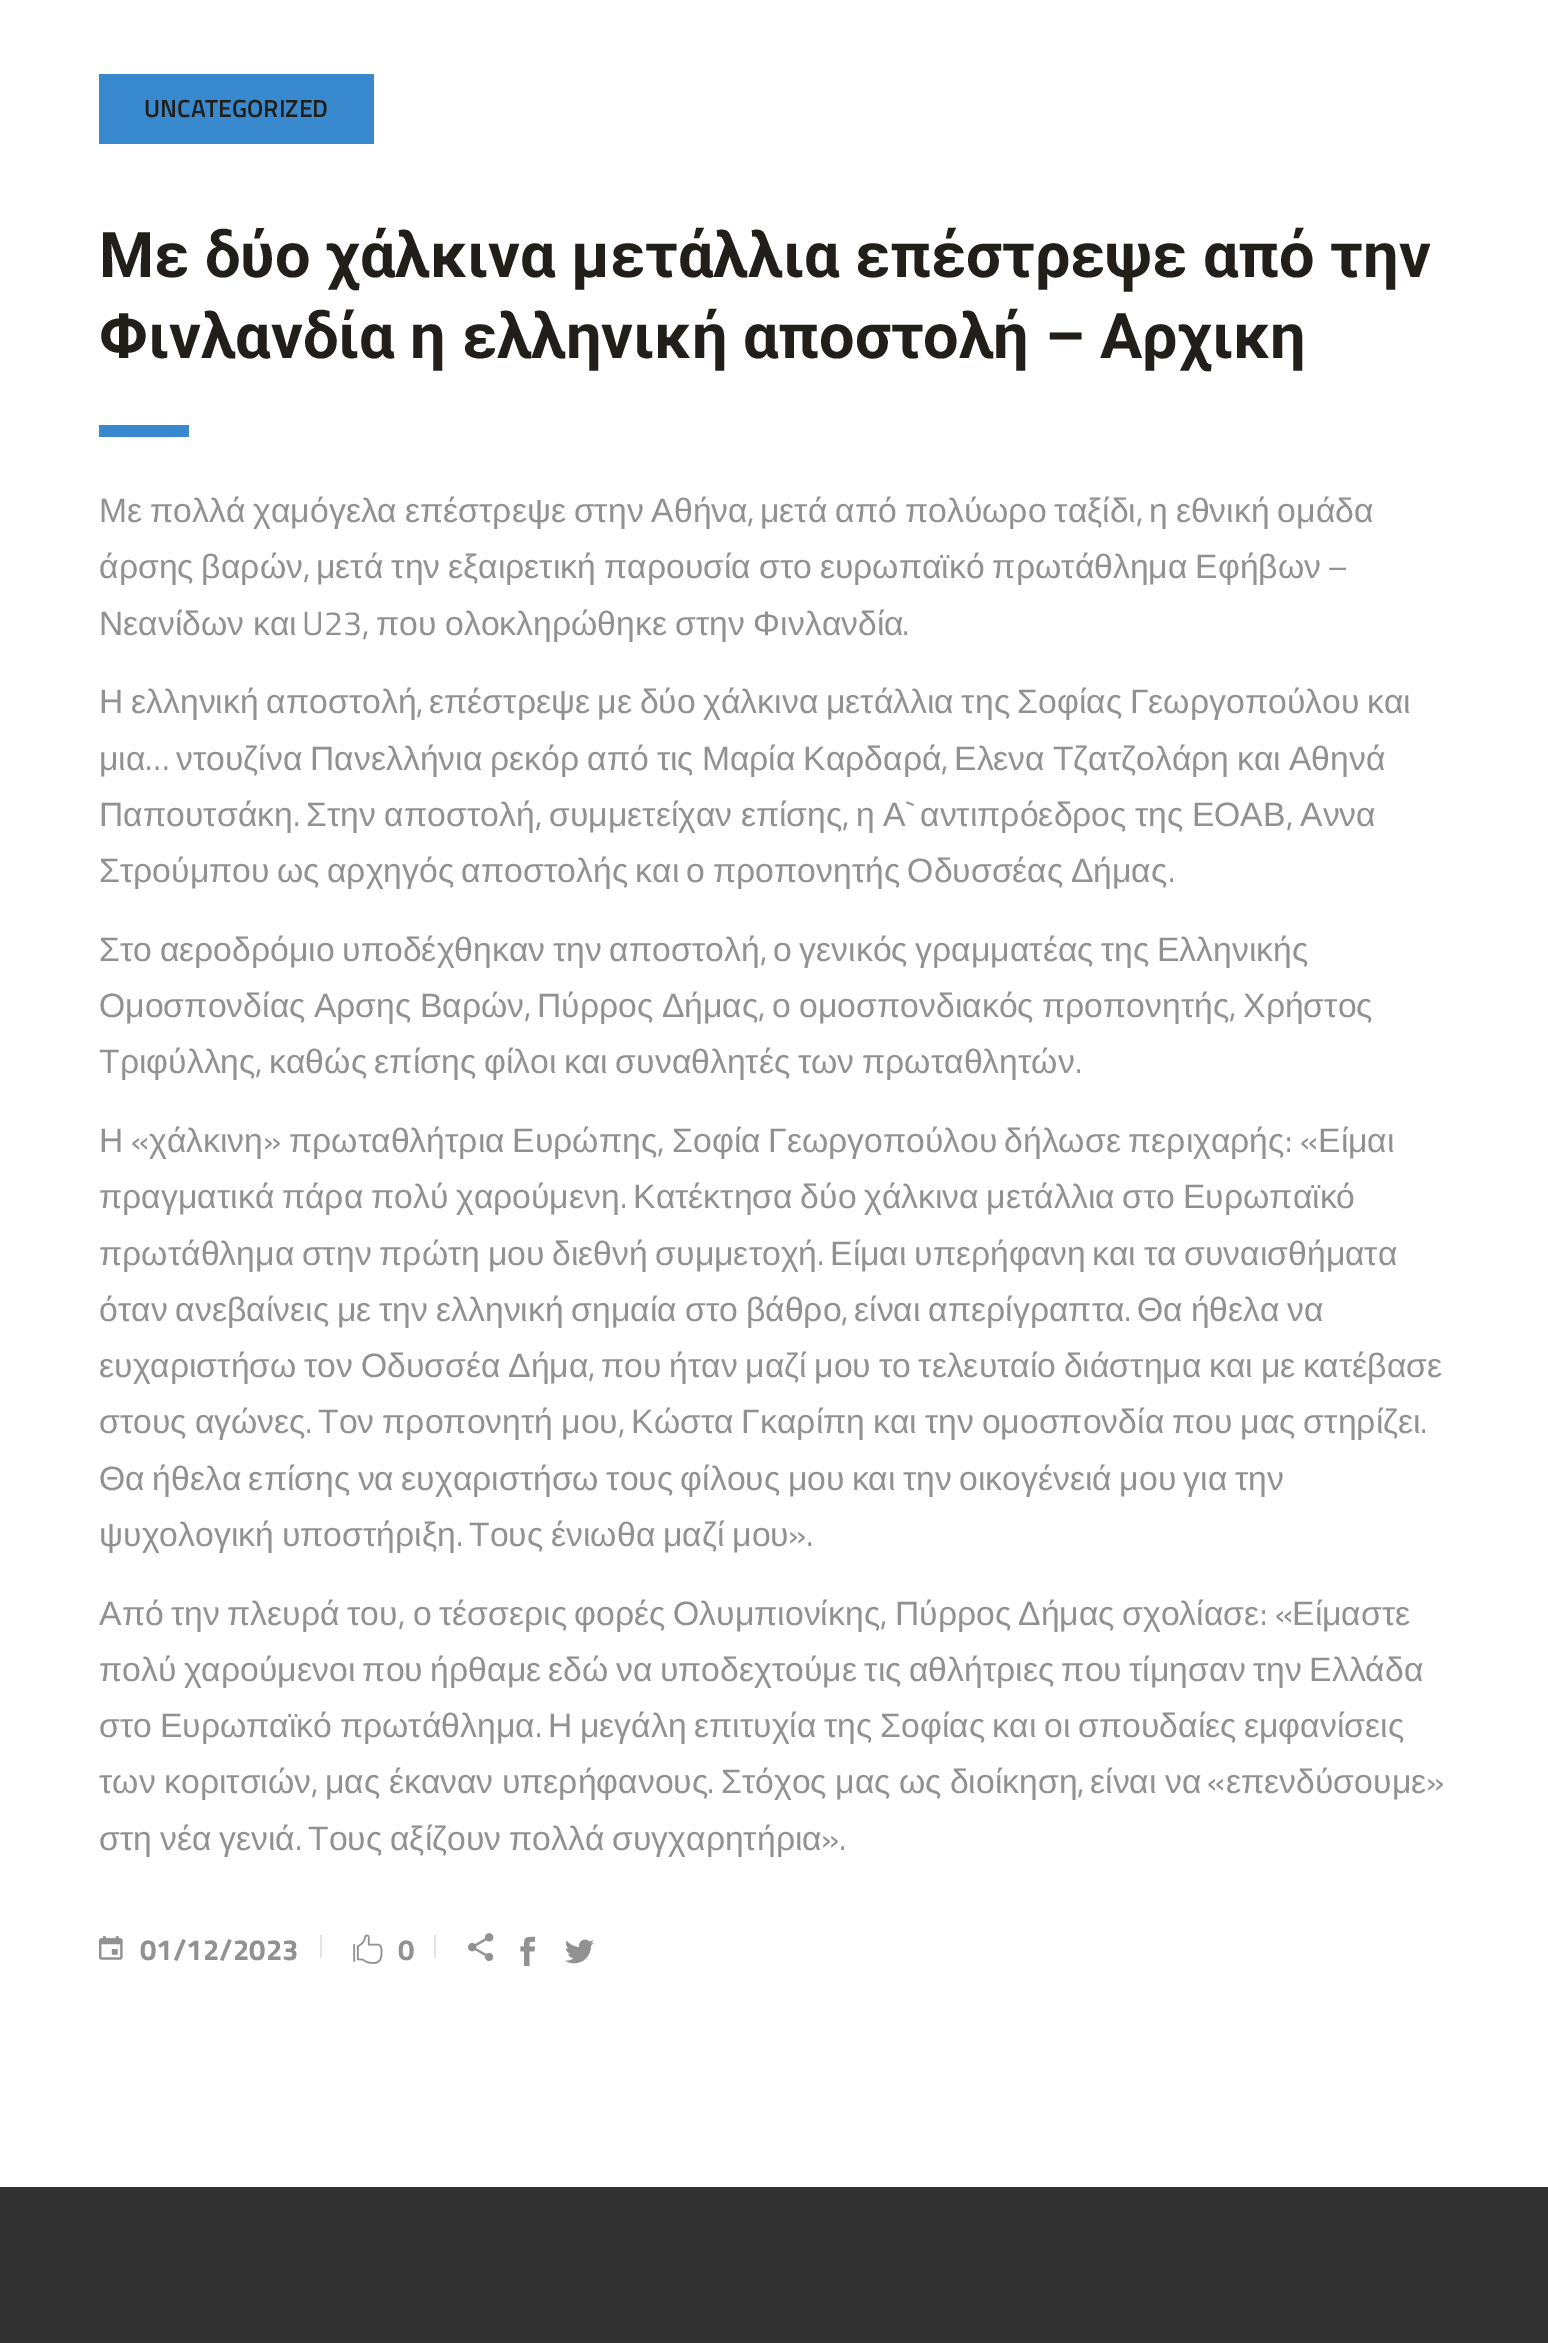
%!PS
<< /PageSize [1548 2343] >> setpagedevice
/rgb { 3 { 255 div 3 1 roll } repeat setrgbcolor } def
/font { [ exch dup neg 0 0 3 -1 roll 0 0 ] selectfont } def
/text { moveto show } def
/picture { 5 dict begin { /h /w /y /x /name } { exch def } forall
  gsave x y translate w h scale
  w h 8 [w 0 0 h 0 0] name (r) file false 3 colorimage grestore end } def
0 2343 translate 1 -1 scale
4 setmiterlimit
255 255 255 rgb
0 0 1548 2343 rectfill
57 137 206 rgb
99 74 275 70 rectfill
99 425 90 12 rectfill
(img_01.rgb) 99 1936 24 24 picture
226 227 227 rgb
320 1935 2 23 rectfill
(img_02.rgb) 353 1934 30 30 picture
434 1935 2 23 rectfill
(img_03.rgb) 468 1933 26 28 picture
(img_04.rgb) 520 1936 15 31 picture
(img_05.rgb) 565 1939 29 25 picture
50 50 50 rgb
0 2187 1548 156 rectfill
/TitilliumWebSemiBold-SemiBold 24.75 font
34 31 27 rgb
(UNCATEGORIZED) 144 117 text
/Roboto-Bold 63 font
(Με δύο χάλκινα μετάλλια επέστρεψε από την) 99 277 text
(Φινλανδία η ελληνική αποστολή – Αρχικη) 99 358 text
/LiberationSans-Regular 33.75 font
146 145 145 rgb
99 522 moveto -1.5 0 32 (Με πολλά χαμόγελα επέστρεψε στην Αθήνα) widthshow
/TitilliumWeb-Regular 33.75 font
(,) 747 522 text
/LiberationSans-Regular 33.75 font
760 522 moveto -1.5 0 32 (μετά από πολύωρο ταξίδι) widthshow
/TitilliumWeb-Regular 33.75 font
(,) 1136 522 text
/LiberationSans-Regular 33.75 font
1149 522 moveto -1.5 0 32 (η εθνική ομάδα) widthshow
99 578 moveto -1.5 0 32 (άρσης βαρών) widthshow
316 578 moveto -1.5 0 32 (μετά την εξαιρετική παρουσία στο ευρωπαϊκό πρωτάθλημα Εφήβων) widthshow
/TitilliumWeb-Regular 33.75 font
(–) 1327 578 text
(,) 303 578 text
/LiberationSans-Regular 33.75 font
99 635 moveto -1 0 32 (Νεανίδων και) widthshow
/TitilliumWeb-Regular 33.75 font
(U23,) 302 635 text
/LiberationSans-Regular 33.75 font
376 635 moveto -1 0 32 (που ολοκληρώθηκε στην Φινλανδία) widthshow
/TitilliumWeb-Regular 33.75 font
(.) 902 635 text
/LiberationSans-Regular 33.75 font
99 713 moveto -1.75 0 32 (Η ελληνική αποστολή) widthshow
/TitilliumWeb-Regular 33.75 font
(,) 416 713 text
/LiberationSans-Regular 33.75 font
429 713 moveto -1.75 0 32 (επέστρεψε με δύο χάλκινα μετάλλια της Σοφίας Γεωργοπούλου και) widthshow
(μια) 99 770 text
/TitilliumWeb-Regular 33.75 font
(…) 145 770 text
/LiberationSans-Regular 33.75 font
176 770 moveto -1.5 0 32 (ντουζίνα Πανελλήνια ρεκόρ από τις Μαρία Καρδαρά) widthshow
/TitilliumWeb-Regular 33.75 font
(,) 941 770 text
/LiberationSans-Regular 33.75 font
954 770 moveto -1.5 0 32 (Ελενα Τζατζολάρη και Αθηνά) widthshow
(Παπουτσάκη) 99 826 text
/TitilliumWeb-Regular 33.75 font
(.) 293 826 text
/LiberationSans-Regular 33.75 font
306 826 moveto -1 0 32 (Στην αποστολή) widthshow
/TitilliumWeb-Regular 33.75 font
(,) 535 826 text
/LiberationSans-Regular 33.75 font
549 826 moveto -1 0 32 (συμμετείχαν επίσης) widthshow
/TitilliumWeb-Regular 33.75 font
(,) 842 826 text
/LiberationSans-Regular 33.75 font
856 826 moveto -1 0 32 (η Α) widthshow
/TitilliumWeb-Regular 33.75 font
(`) 906 826 text
/LiberationSans-Regular 33.75 font
920 826 moveto -1 0 32 (αντιπρόεδρος της ΕΟΑΒ) widthshow
/TitilliumWeb-Regular 33.75 font
(,) 1286 826 text
/LiberationSans-Regular 33.75 font
(Αννα) 1300 826 text
99 882 moveto -2 0 32 (Στρούμπου ως αρχηγός αποστολής και ο προπονητής Οδυσσέας Δήμας) widthshow
/TitilliumWeb-Regular 33.75 font
(.) 1168 882 text
/LiberationSans-Regular 33.75 font
99 961 moveto -1.75 0 32 (Στο αεροδρόμιο υποδέχθηκαν την αποστολή) widthshow
/TitilliumWeb-Regular 33.75 font
(,) 760 961 text
/LiberationSans-Regular 33.75 font
773 961 moveto -1.75 0 32 (ο γενικός γραμματέας της Ελληνικής) widthshow
99 1017 moveto -1 0 32 (Ομοσπονδίας Αρσης Βαρών) widthshow
/TitilliumWeb-Regular 33.75 font
(,) 524 1017 text
/LiberationSans-Regular 33.75 font
537 1017 moveto -1 0 32 (Πύρρος Δήμας) widthshow
/TitilliumWeb-Regular 33.75 font
(,) 758 1017 text
/LiberationSans-Regular 33.75 font
772 1017 moveto -1 0 32 (ο ομοσπονδιακός προπονητής) widthshow
/TitilliumWeb-Regular 33.75 font
(,) 1229 1017 text
/LiberationSans-Regular 33.75 font
(Χρήστος) 1243 1017 text
(Τριφύλλης) 99 1073 text
/TitilliumWeb-Regular 33.75 font
(,) 255 1073 text
/LiberationSans-Regular 33.75 font
269 1073 moveto -1.75 0 32 (καθώς επίσης φίλοι και συναθλητές των πρωταθλητών) widthshow
/TitilliumWeb-Regular 33.75 font
(.) 1075 1073 text
/LiberationSans-Regular 33.75 font
(Η) 99 1152 text
/TitilliumWeb-Regular 33.75 font
(«) 131 1152 text
/LiberationSans-Regular 33.75 font
(χάλκινη) 149 1152 text
/TitilliumWeb-Regular 33.75 font
(») 263 1152 text
/LiberationSans-Regular 33.75 font
(πρωταθλήτρια) 289 1152 text
(Ευρώπης) 512 1152 text
/TitilliumWeb-Regular 33.75 font
(,) 657 1152 text
/LiberationSans-Regular 33.75 font
(Σοφία) 672 1152 text
(Γεωργοπούλου) 768 1152 text
(δήλωσε) 1004 1152 text
(περιχαρής) 1128 1152 text
/TitilliumWeb-Regular 33.75 font
(: «) 1285 1152 text
/LiberationSans-Regular 33.75 font
(Είμαι) 1318 1152 text
99 1208 moveto -1.75 0 32 (πραγματικά πάρα πολύ χαρούμενη) widthshow
/TitilliumWeb-Regular 33.75 font
(.) 620 1208 text
/LiberationSans-Regular 33.75 font
633 1208 moveto -1.75 0 32 (Κατέκτησα δύο χάλκινα μετάλλια στο Ευρωπαϊκό) widthshow
99 1265 moveto -1.75 0 32 (πρωτάθλημα στην πρώτη μου διεθνή συμμετοχή) widthshow
/TitilliumWeb-Regular 33.75 font
(.) 817 1265 text
/LiberationSans-Regular 33.75 font
830 1265 moveto -1.75 0 32 (Είμαι υπερήφανη) widthshow
1092 1265 moveto -1.75 0 32 (και τα συναισθήματα) widthshow
99 1321 moveto -1.5 0 32 (όταν ανεβαίνεις με την ελληνική σημαία στο βάθρο) widthshow
/TitilliumWeb-Regular 33.75 font
(,) 841 1321 text
/LiberationSans-Regular 33.75 font
854 1321 moveto -1.5 0 32 (είναι απερίγραπτα) widthshow
/TitilliumWeb-Regular 33.75 font
(.) 1124 1321 text
/LiberationSans-Regular 33.75 font
1137 1321 moveto -1.5 0 32 (Θα ήθελα να) widthshow
99 1377 moveto -1.75 0 32 (ευχαριστήσω τον Οδυσσέα Δήμα) widthshow
/TitilliumWeb-Regular 33.75 font
(,) 588 1377 text
/LiberationSans-Regular 33.75 font
601 1377 moveto -1.75 0 32 (που ήταν μαζί μου το τελευταίο διάστημα και με κατέβασε) widthshow
99 1433 moveto -1.5 0 32 (στους αγώνες) widthshow
/TitilliumWeb-Regular 33.75 font
(.) 305 1433 text
/LiberationSans-Regular 33.75 font
318 1433 moveto -1.5 0 32 (Τον προπονητή μου) widthshow
/TitilliumWeb-Regular 33.75 font
(,) 618 1433 text
/LiberationSans-Regular 33.75 font
631 1433 moveto -1.5 0 32 (Κώστα Γκαρίπη και την ομοσπονδία που μας στηρίζει) widthshow
/TitilliumWeb-Regular 33.75 font
(.) 1420 1433 text
/LiberationSans-Regular 33.75 font
99 1490 moveto -2 0 32 (Θα ήθελα επίσης να ευχαριστήσω τους φίλους μου και την οικογένειά μου για την) widthshow
99 1546 moveto -1.5 0 32 (ψυχολογική υποστήριξη) widthshow
/TitilliumWeb-Regular 33.75 font
(.) 456 1546 text
/LiberationSans-Regular 33.75 font
469 1546 moveto -1.5 0 32 (Τους ένιωθα μαζί μου) widthshow
/TitilliumWeb-Regular 33.75 font
(».) 788 1546 text
/LiberationSans-Regular 33.75 font
(Από) 99 1625 text
(την) 171 1625 text
(πλευρά) 227 1625 text
(του) 347 1625 text
/TitilliumWeb-Regular 33.75 font
(,) 398 1625 text
/LiberationSans-Regular 33.75 font
(ο) 413 1625 text
(τέσσερις) 439 1625 text
(φορές) 574 1625 text
(Ολυμπιονίκης) 673 1625 text
/TitilliumWeb-Regular 33.75 font
(,) 880 1625 text
/LiberationSans-Regular 33.75 font
(Πύρρος) 895 1625 text
(Δήμας) 1018 1625 text
(σχολίασε) 1122 1625 text
/TitilliumWeb-Regular 33.75 font
(: «) 1260 1625 text
/LiberationSans-Regular 33.75 font
(Είμαστε) 1292 1625 text
99 1681 moveto -2 0 32 (πολύ χαρούμενοι που ήρθαμε εδώ να υποδεχτούμε τις αθλήτριες που τίμησαν την Ελλάδα) widthshow
99 1737 moveto -1.75 0 32 (στο Ευρωπαϊκό πρωτάθλημα) widthshow
/TitilliumWeb-Regular 33.75 font
(.) 535 1737 text
/LiberationSans-Regular 33.75 font
548 1737 moveto -1.75 0 32 (Η μεγάλη επιτυχία της Σοφίας και οι σπουδαίες εμφανίσεις) widthshow
99 1793 moveto -1 0 32 (των κοριτσιών) widthshow
325 1793 moveto -1 0 32 (μας έκαναν υπερήφανους) widthshow
721 1793 moveto -1 0 32 (Στόχος μας ως διοίκηση) widthshow
1090 1793 moveto -1 0 32 (είναι να) widthshow
/TitilliumWeb-Regular 33.75 font
(«) 1207 1793 text
/LiberationSans-Regular 33.75 font
(επενδύσουμε) 1226 1793 text
/TitilliumWeb-Regular 33.75 font
(») 1426 1793 text
(,) 311 1793 text
(.) 707 1793 text
(,) 1077 1793 text
/LiberationSans-Regular 33.75 font
99 1850 moveto -1.5 0 32 (στη νέα γενιά) widthshow
/TitilliumWeb-Regular 33.75 font
(.) 295 1850 text
/LiberationSans-Regular 33.75 font
308 1850 moveto -1.5 0 32 (Τους αξίζουν πολλά συγχαρητήρια) widthshow
/TitilliumWeb-Regular 33.75 font
(».) 821 1850 text
/TitilliumWeb-Bold 29.25 font
(01/12/2023) 140 1960 text
(0) 398 1960 text
showpage
